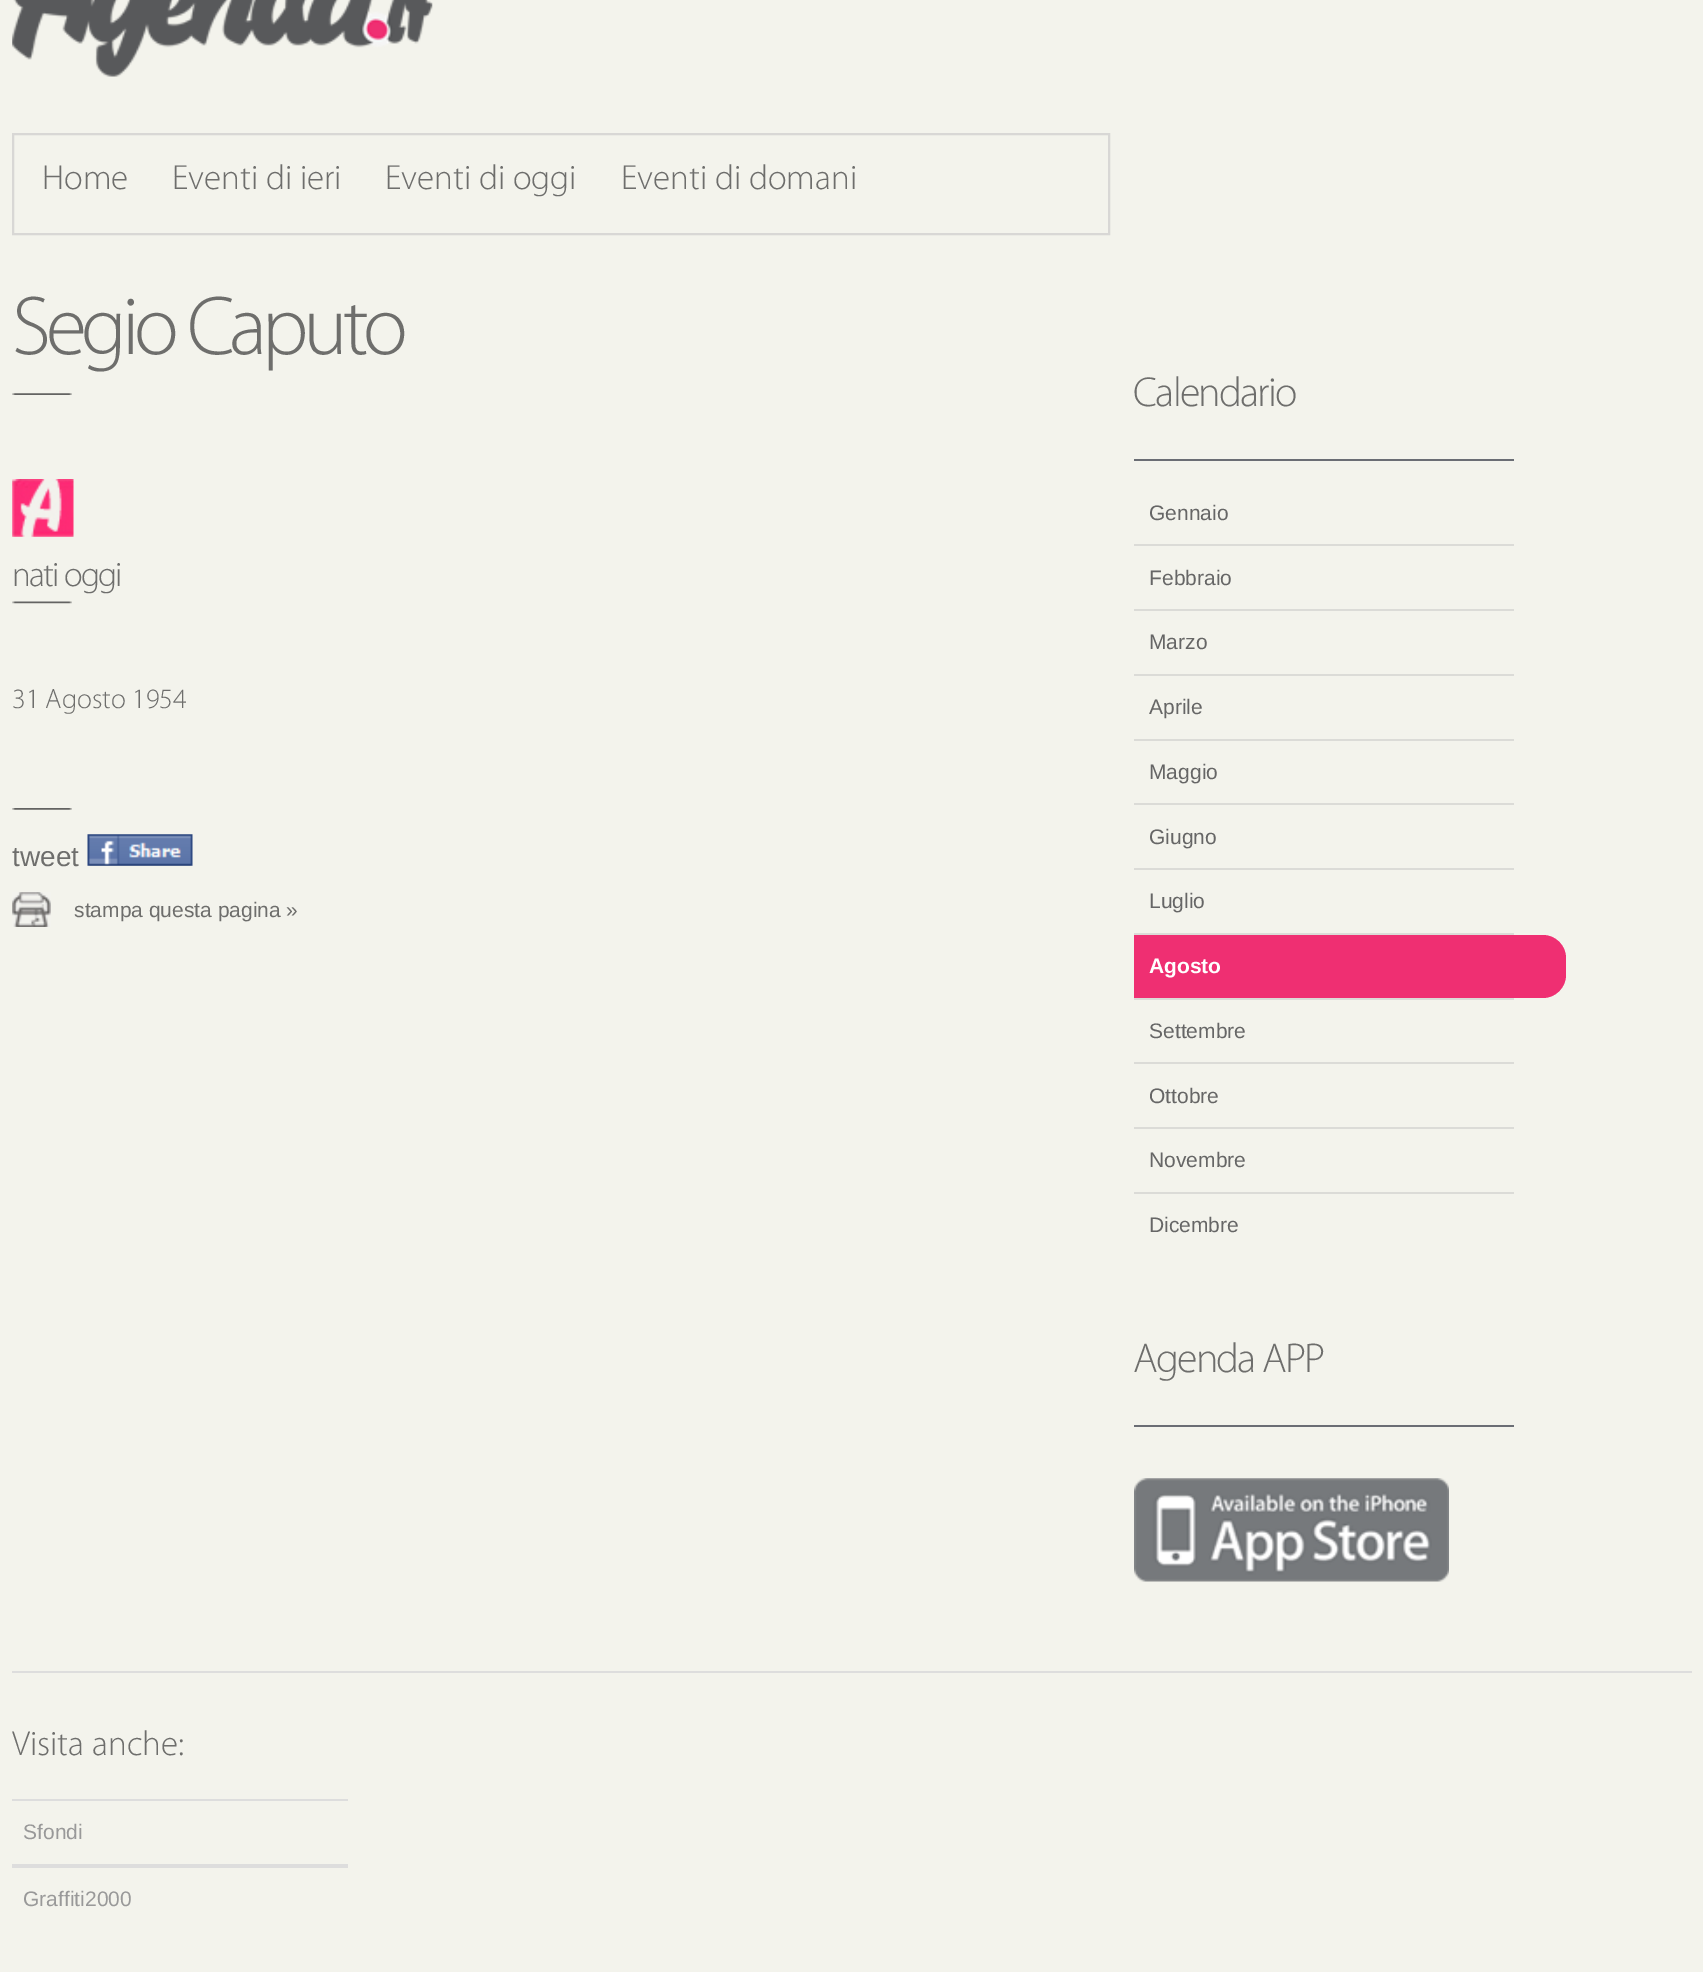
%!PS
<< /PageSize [1703 1972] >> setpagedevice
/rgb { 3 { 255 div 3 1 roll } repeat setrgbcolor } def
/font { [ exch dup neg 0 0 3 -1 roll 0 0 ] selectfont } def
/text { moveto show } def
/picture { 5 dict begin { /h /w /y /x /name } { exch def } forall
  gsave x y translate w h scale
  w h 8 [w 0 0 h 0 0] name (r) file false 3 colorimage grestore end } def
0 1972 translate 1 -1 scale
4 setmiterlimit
243 243 236 rgb
0 0 1703 1972 rectfill
(img_01.rgb) 12 0 421 77 picture
216 215 213 rgb
2 setlinewidth
13 134 1096 100 rectstroke
(img_02.rgb) 12 393 60 2 picture
(img_03.rgb) 12 479 62 58 picture
(img_04.rgb) 12 601 60 3 picture
(img_05.rgb) 12 808 60 2 picture
(img_06.rgb) 87 834 106 32 picture
(img_07.rgb) 12 892 39 35 picture
106 109 116 rgb
1134 459 380 2 rectfill
219 219 215 rgb
1134 544 380 2 rectfill
1134 609 380 2 rectfill
1134 674 380 2 rectfill
1134 739 380 2 rectfill
1134 803 380 2 rectfill
1134 868 380 2 rectfill
1134 933 380 2 rectfill
239 47 114 rgb
1134 935 moveto 409 0 rlineto 12.5 0 23 10.5 23 23 rcurveto 0 17 rlineto 0 12.5 -10.5 23 -23 23 rcurveto -409 0 rlineto closepath fill
219 219 215 rgb
1134 998 380 2 rectfill
1134 1062 380 2 rectfill
1134 1127 380 2 rectfill
1134 1192 380 2 rectfill
106 109 116 rgb
1134 1425 380 2 rectfill
(img_08.rgb) 1134 1478 315 104 picture
221 221 221 rgb
12 1671 1680 2 rectfill
12 1799 336 2 rectfill
12 1864 336 4 rectfill
/Myriad-Light 35 font
110 110 108 rgb
(Home) 42 189 text
(Eventi di ieri) 172 189 text
(Eventi di oggi) 385 189 text
(Eventi di domani) 621 189 text
/Myriad-Light 84 font
12 354 moveto -5.25 0 (Segio Caputo) ashow
/Myriad-Light 35 font
12 586 moveto -1.75 0 (nati oggi) ashow
/Myriad-Light 28 font
(31 Agosto 1954) 12 708 text
/LiberationSans-Regular 28 font
(tweet) 12 866 text
/LiberationSans-Regular 21 font
(stampa questa pagina ») 74 917 text
/Myriad-Light 42 font
1133 406 moveto -1.75 0 (Calendario) ashow
/LiberationSans-Regular 21 font
102 102 102 rgb
(Gennaio) 1149 520 text
(Febbraio) 1149 585 text
(Marzo) 1149 649 text
(Aprile) 1149 714 text
(Maggio) 1149 779 text
(Giugno) 1149 844 text
(Luglio) 1149 908 text
/LiberationSans-Bold 21 font
255 255 255 rgb
(Agosto) 1149 973 text
/LiberationSans-Regular 21 font
102 102 102 rgb
(Settembre) 1149 1038 text
(Ottobre) 1149 1103 text
(Novembre) 1149 1167 text
(Dicembre) 1149 1232 text
/Myriad-Light 42 font
110 110 108 rgb
1133 1372 moveto -1.75 0 (Agenda APP) ashow
/Myriad-Light 35 font
(Visita anche:) 12 1755 text
/LiberationSans-Regular 21 font
153 153 153 rgb
(Sfondi) 23 1839 text
(Graffiti2000) 23 1906 text
showpage
